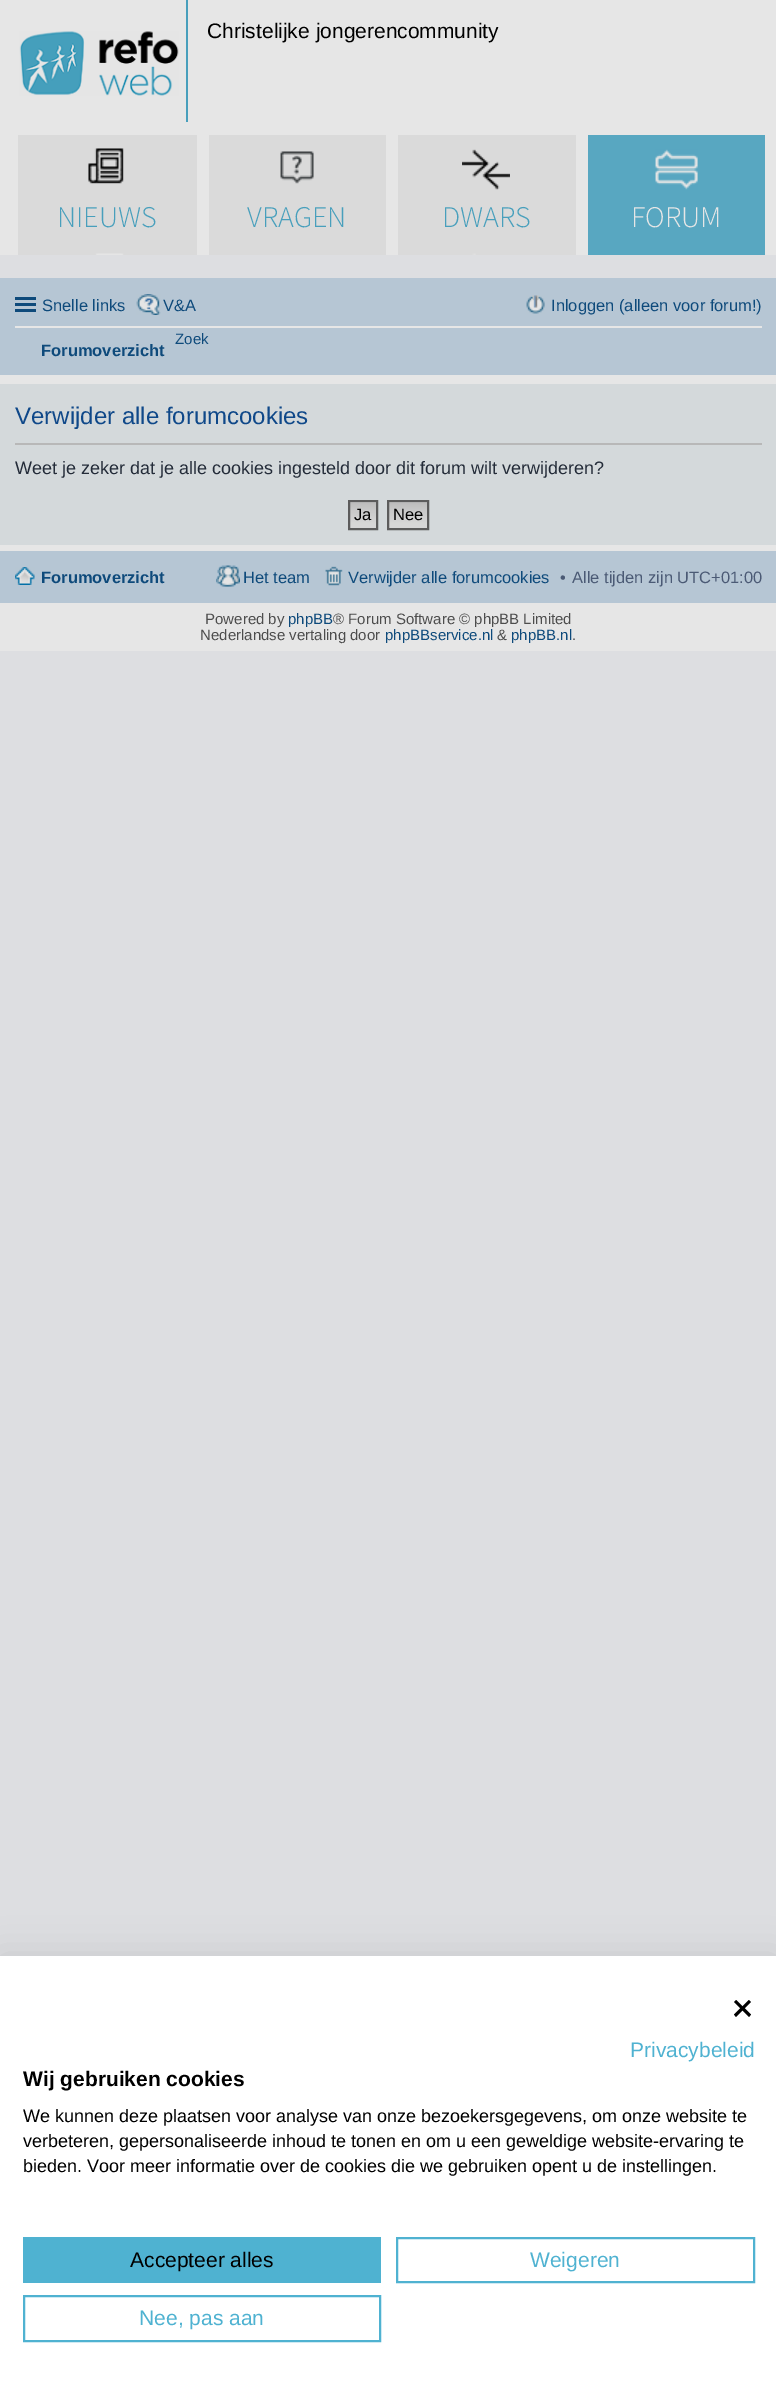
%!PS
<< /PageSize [776 2382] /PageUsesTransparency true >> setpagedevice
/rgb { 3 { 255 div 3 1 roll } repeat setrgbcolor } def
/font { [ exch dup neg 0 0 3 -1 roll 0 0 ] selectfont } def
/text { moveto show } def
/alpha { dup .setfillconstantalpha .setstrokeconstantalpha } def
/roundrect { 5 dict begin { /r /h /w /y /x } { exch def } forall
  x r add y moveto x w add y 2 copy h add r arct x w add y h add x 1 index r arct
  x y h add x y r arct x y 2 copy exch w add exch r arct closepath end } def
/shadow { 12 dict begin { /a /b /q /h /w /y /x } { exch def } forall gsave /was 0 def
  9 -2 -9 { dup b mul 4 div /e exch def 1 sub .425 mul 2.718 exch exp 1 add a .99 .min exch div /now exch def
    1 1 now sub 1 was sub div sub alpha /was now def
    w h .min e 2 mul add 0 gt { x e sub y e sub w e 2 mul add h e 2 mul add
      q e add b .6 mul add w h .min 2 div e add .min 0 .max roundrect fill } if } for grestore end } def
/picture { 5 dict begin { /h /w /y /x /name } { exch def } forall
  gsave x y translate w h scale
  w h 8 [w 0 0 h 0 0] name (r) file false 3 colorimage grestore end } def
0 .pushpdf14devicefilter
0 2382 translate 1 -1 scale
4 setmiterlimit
221 222 225 rgb
0 0 776 2382 rectfill
230 230 230 rgb
0 0 776 255 rectfill
(img_01.rgb) 19 31 160 65 picture
72 159 188 rgb
186 0 2 122 rectfill
218 218 218 rgb
18 135 179 120 rectfill
(img_02.rgb) 88 148 36 107 picture
209 135 177 120 rectfill
(img_03.rgb) 280 151 34 33 picture
398 135 178 120 rectfill
(img_04.rgb) 462 149 48 106 picture
88 167 193 rgb
588 135 177 120 rectfill
(img_05.rgb) 655 149 43 41 picture
230 230 230 rgb
0 375 776 276 rectfill
182 198 212 rgb
0 278 776 97 rectfill
14 74 123 rgb
15 297 21 3 rectfill
15 303 21 3 rectfill
15 309 21 3 rectfill
(img_06.rgb) 136 294 25 21 picture
(img_07.rgb) 526 295 19 19 picture
230 230 230 rgb
15 326 747 2 rectfill
212 217 219 rgb
0 384 776 161 rectfill
184 184 184 rgb
15 443 747 2 rectfill
(img_08.rgb) 350 502 26 26 picture
92 92 92 rgb
2 setlinewidth
349 501 28 28 rectstroke
(img_09.rgb) 389 502 38 26 picture
388 501 40 28 rectstroke
182 198 212 rgb
0 551 776 52 rectfill
(img_10.rgb) 15 567 20 18 picture
(img_11.rgb) 216 565 24 22 picture
(img_12.rgb) 325 566 18 20 picture
0 0 0 rgb
0 1956 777 426 0 18 0.1 shadow
255 255 255 rgb
0 1956 776 426 rectfill
0 0 0 rgb
749 2000 moveto 2 2 rlineto -15 15 rlineto -2 -2.5 rlineto closepath fill
734 2002 moveto 2 -2 rlineto 15 14.5 rlineto -2 2.5 rlineto closepath fill
79 178 209 rgb
23 2237 358 46 rectfill
397 2238 357 44 rectstroke
24 2296 356 45 rectstroke
/LiberationSans-Regular 21 font
0 0 0 rgb
(Christelijke jongerencommunity) 207 38 text
/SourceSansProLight-Light 30 font
72 159 188 rgb
(NIEUWS) 57 227 text
(VRAGEN) 247 227 text
(DWARS) 442 227 text
230 230 230 rgb
(FORUM) 631 227 text
/LiberationSans-Regular 16.5 font
14 74 123 rgb
(Snelle links) 42 311 text
(V&A) 163 311 text
(Inloggen \(alleen voor forum!\)) 551 311 text
/LiberationSans-Regular 15 font
(Zoek) 175 344 text
/LiberationSans-Bold 16.5 font
(Forumoverzicht) 41 356 text
/LiberationSans-Regular 24 font
15 72 137 rgb
(Verwijder alle forumcookies) 15 424 text
/LiberationSans-Regular 18 font
36 44 57 rgb
(Weet je zeker dat je alle cookies ingesteld door dit forum wilt verwijderen?) 15 474 text
/LiberationSans-Regular 16.5 font
0 0 0 rgb
(Ja) 354 520 text
(Nee) 393 520 text
/LiberationSans-Bold 16.5 font
14 74 123 rgb
(Forumoverzicht) 41 583 text
/LiberationSans-Regular 16.5 font
(Het team) 243 583 text
(Verwijder alle forumcookies) 348 583 text
75 90 117 rgb
(•) 560 583 text
(Alle tijden zijn UTC+01:00) 572 583 text
/LiberationSans-Regular 15 font
77 77 77 rgb
(Powered by) 205 624 text
14 74 123 rgb
(phpBB) 288 624 text
77 77 77 rgb
(® Forum Software © phpBB Limited) 333 624 text
(Nederlandse vertaling door) 200 640 text
14 74 123 rgb
(phpBBservice.nl) 385 640 text
77 77 77 rgb
(&) 497 640 text
14 74 123 rgb
(phpBB.nl) 511 640 text
77 77 77 rgb
(.) 572 640 text
/LiberationSans-Regular 21 font
79 178 209 rgb
(Privacybeleid) 630 2057 text
/LiberationSans-Bold 21 font
0 0 0 rgb
(Wij gebruiken cookies) 23 2086 text
/LiberationSans-Regular 18 font
(We kunnen deze plaatsen voor analyse van onze bezoekersgegevens, om onze website te) 23 2122 text
(verbeteren, gepersonaliseerde inhoud te tonen en om u een geweldige website-ervaring te) 23 2147 text
(bieden. Voor meer informatie over de cookies die we gebruiken opent u de instellingen.) 23 2172 text
/LiberationSans-Regular 21 font
(Accepteer alles) 130 2267 text
79 178 209 rgb
(Weigeren) 530 2267 text
(Nee, pas aan) 139 2325 text
.poppdf14devicefilter showpage
